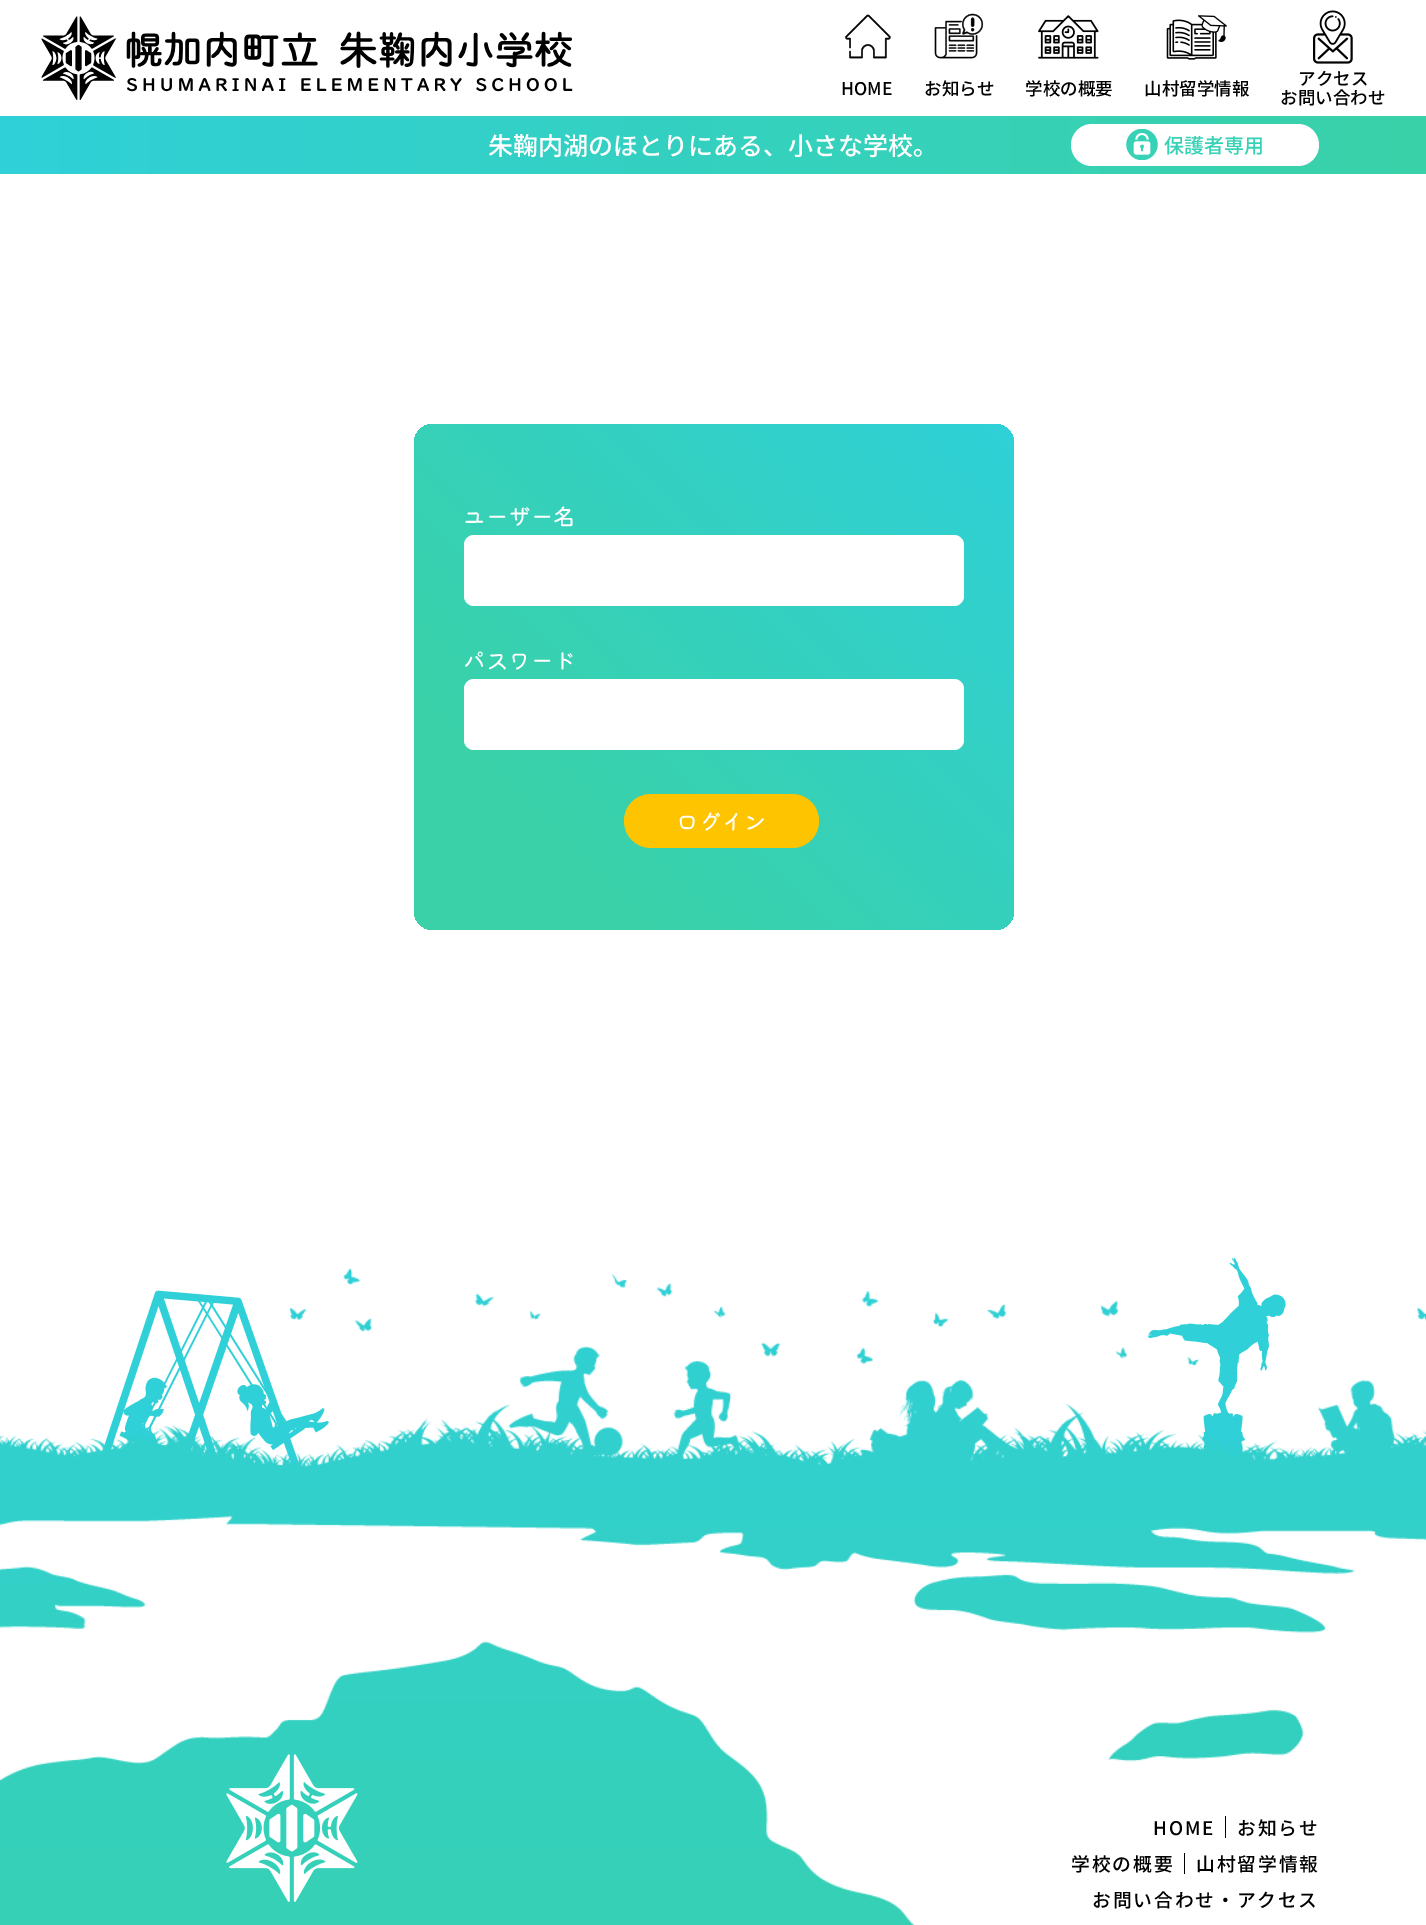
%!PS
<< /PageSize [1426 1925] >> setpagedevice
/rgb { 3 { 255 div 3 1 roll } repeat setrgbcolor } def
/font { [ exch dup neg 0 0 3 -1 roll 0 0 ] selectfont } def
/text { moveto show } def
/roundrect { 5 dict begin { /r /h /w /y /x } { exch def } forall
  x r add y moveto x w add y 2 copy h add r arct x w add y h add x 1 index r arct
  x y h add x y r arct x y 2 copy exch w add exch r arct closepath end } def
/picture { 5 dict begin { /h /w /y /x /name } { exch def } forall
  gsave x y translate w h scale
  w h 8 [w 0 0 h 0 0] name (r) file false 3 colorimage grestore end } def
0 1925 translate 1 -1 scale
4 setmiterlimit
255 255 255 rgb
0 0 1426 1925 rectfill
(img_01.rgb) 41 16 532 84 picture
(img_02.rgb) 845 14 46 45 picture
(img_03.rgb) 934 13 50 46 picture
(img_04.rgb) 1038 15 61 44 picture
(img_05.rgb) 1166 15 61 45 picture
(img_06.rgb) 1313 10 40 54 picture
gsave 0 116 moveto 1426 0 rlineto 0 58 rlineto -1426 0 rlineto closepath clip newpath
<< /ShadingType 2 /ColorSpace /DeviceRGB /Coords [0 145 1426 145] /Extend [true true] /Function << /FunctionType 2 /Domain [0 1] /C0 [0.184 0.816 0.847] /C1 [0.227 0.82 0.659] /N 1 >> >> shfill grestore
1071 124 248 42 21 roundrect fill
(img_07.rgb) 1126 129 32 31 picture
gsave 414 424 600 506 19 roundrect clip newpath
<< /ShadingType 2 /ColorSpace /DeviceRGB /Coords [437 953 990 400] /Extend [true true] /Function << /FunctionType 3 /Domain [0 1] /Functions [<< /FunctionType 2 /Domain [0 1] /C0 [0.227 0.82 0.659] /C1 [0.227 0.82 0.659] /N 1 >> << /FunctionType 2 /Domain [0 1] /C0 [0.227 0.82 0.659] /C1 [0.184 0.816 0.847] /N 1 >>] /Bounds [0.2] /Encode [0 1 0 1] >> >> shfill grestore
464 535 500 71 10 roundrect fill
464 679 500 71 10 roundrect fill
255 196 0 rgb
624 794 195 54 27 roundrect fill
(img_09.rgb) 1148 1257 138 201 picture
(img_11.rgb) 102 1290 227 177 picture
(img_12.rgb) 289 1273 910 93 picture
(img_08.rgb) 0 1346 1426 579 picture
(img_10.rgb) 343 1268 1083 53 picture
(img_13.rgb) 226 1754 132 148 picture
0 0 0 rgb
1225 1816 1 22 rectfill
1184 1853 1 21 rectfill
/NotoSansJP-Medium 17.5 font
(HOME) 841 95 text
(お知らせ) 924 95 text
(学校の概要) 1025 95 text
(山村留学情報) 1144 95 text
(アクセス) 1298 85 text
(お問い合わせ) 1280 104 text
/NotoSansJP-Medium 25 font
255 255 255 rgb
(朱鞠内湖のほとりにある、小さな学校。) 488 155 text
/NotoSansJP-Medium 20 font
55 209 182 rgb
(保護者専用) 1164 153 text
/KiwiMaru-Medium 22.5 font
255 255 255 rgb
(ユーザー名) 463 525 text
(パスワード) 463 669 text
(ログイン) 676 830 text
/NotoSansJP-Medium 18.75 font
0 0 0 rgb
1153 1835 moveto 1.9 0 (HOME) ashow
1237 1835 moveto 1.9 0 (お知らせ) ashow
1071 1871 moveto 1.9 0 (学校の概要) ashow
1196 1871 moveto 1.9 0 (山村留学情報) ashow
1092 1907 moveto 1.9 0 (お問い合わせ・アクセス) ashow
showpage
